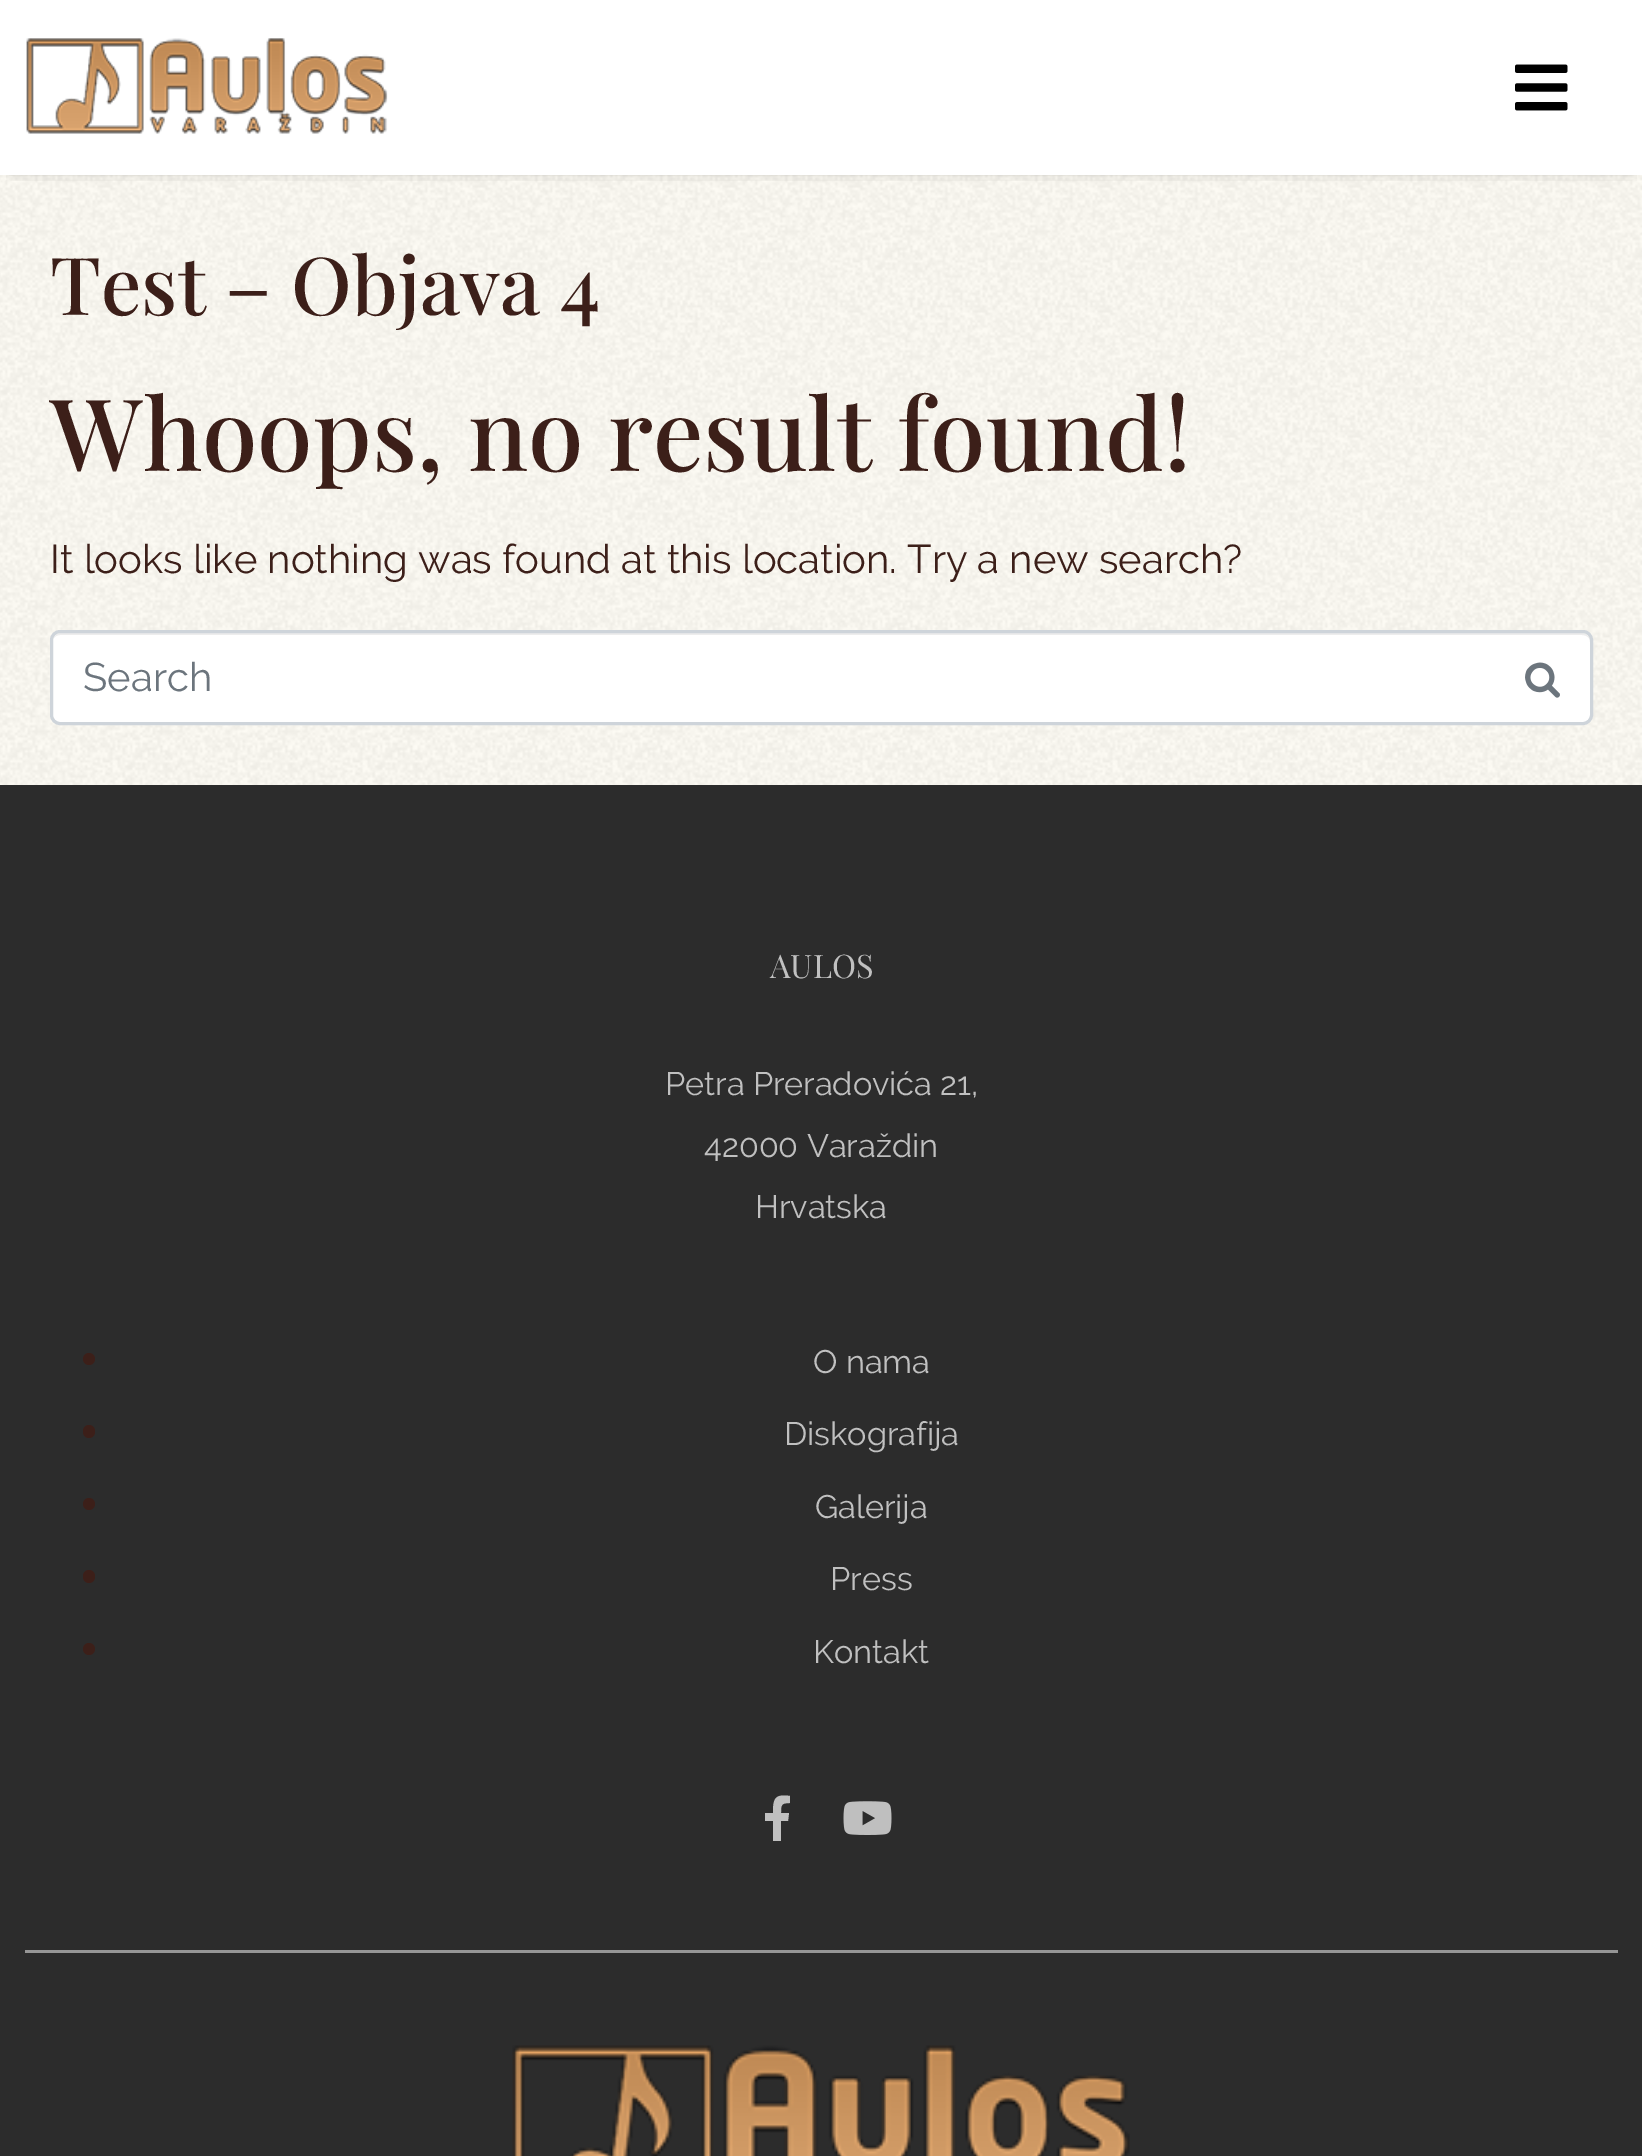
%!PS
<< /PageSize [1642 2156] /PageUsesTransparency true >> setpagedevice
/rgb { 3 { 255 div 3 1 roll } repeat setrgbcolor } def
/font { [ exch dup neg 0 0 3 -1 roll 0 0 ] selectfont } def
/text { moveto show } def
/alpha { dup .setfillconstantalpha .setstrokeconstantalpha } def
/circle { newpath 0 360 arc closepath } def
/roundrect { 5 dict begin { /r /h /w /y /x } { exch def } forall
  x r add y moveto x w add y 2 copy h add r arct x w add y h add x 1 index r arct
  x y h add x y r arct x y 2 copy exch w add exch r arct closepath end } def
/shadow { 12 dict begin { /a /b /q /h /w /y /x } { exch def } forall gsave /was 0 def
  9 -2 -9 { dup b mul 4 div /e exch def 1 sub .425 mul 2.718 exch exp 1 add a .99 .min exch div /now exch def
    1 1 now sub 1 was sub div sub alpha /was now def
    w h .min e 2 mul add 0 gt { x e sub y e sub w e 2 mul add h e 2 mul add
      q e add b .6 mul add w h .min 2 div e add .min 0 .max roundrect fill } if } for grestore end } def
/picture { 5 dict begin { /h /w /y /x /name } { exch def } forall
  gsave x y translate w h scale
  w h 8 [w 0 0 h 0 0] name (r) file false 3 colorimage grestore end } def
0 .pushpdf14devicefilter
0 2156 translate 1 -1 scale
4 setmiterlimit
255 255 255 rgb
0 0 1642 2156 rectfill
254 252 244 rgb
0 175 1642 610 rectfill
(img_03.rgb) 0 175 1642 610 picture
gsave
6 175 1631 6 rectclip
0 0 0 rgb
10 10 1623 155 0 9 0.5 shadow
grestore
(img_01.rgb) 26 38 362 96 picture
(img_02.rgb) 1515 64 53 47 picture
255 255 255 rgb
53 633 1537 90 8 roundrect fill
0.07 alpha
0 0 0 rgb
60 635 moveto 1522 0 rlineto 5 0 8 3 8 7 rcurveto 0 -1 rlineto 0 -4 -4 -8 -8 -8 rcurveto -1521 0 rlineto -3 0 -6 2 -7 5 rcurveto 1 -2 4 -3 6 -3 rcurveto closepath fill
1 alpha
206 212 218 rgb
3 setlinewidth
51.5 631.5 1540 92 8.5 roundrect stroke
(img_04.rgb) 1525 662 35 36 picture
44 44 44 rgb
0 785 1642 1371 rectfill
60 31 25 rgb
89 1359 6 circle fill
83 1425 12 13 6 roundrect fill
89 1504 6 circle fill
83 1570 12 13 6 roundrect fill
89 1649 6 circle fill
192 192 192 rgb
788 1821 moveto -7 0 rlineto 0 20 rlineto -8 0 rlineto 0 -20 rlineto -8 0 rlineto 0 -8 rlineto 8 0 rlineto 0 -15 2 -19 17 -17 rcurveto 0 7 rlineto -9 0 -9 2 -9 10 rcurveto 8 0 rlineto closepath fill
(img_05.rgb) 843 1801 49 34 picture
150 150 150 rgb
25 1950 1593 3 rectfill
(img_06.rgb) 512 2045 618 111 picture
/PlayfairDisplay-Medium 80 font
60 31 25 rgb
(Test – Objava 4) 50 315 text
/PlayfairDisplay-Medium 100 font
(Whoops, no result found!) 50 471 text
/Raleway-Regular 40 font
(It looks like nothing was found at this location. Try a new search?) 50 573 text
108 117 125 rgb
(Search) 83 691 text
/PlayfairDisplay-Regular 32.5 font
192 192 192 rgb
(AULOS) 770 978 text
/Raleway-Regular 32.5 font
(Petra Preradovića 21,) 665 1095 text
(42000 Varaždin) 704 1157 text
(Hrvatska) 755 1218 text
(O nama) 813 1373 text
(Diskografija) 784 1445 text
(Galerija) 815 1518 text
(Press) 830 1590 text
(Kontakt) 813 1663 text
.poppdf14devicefilter showpage
